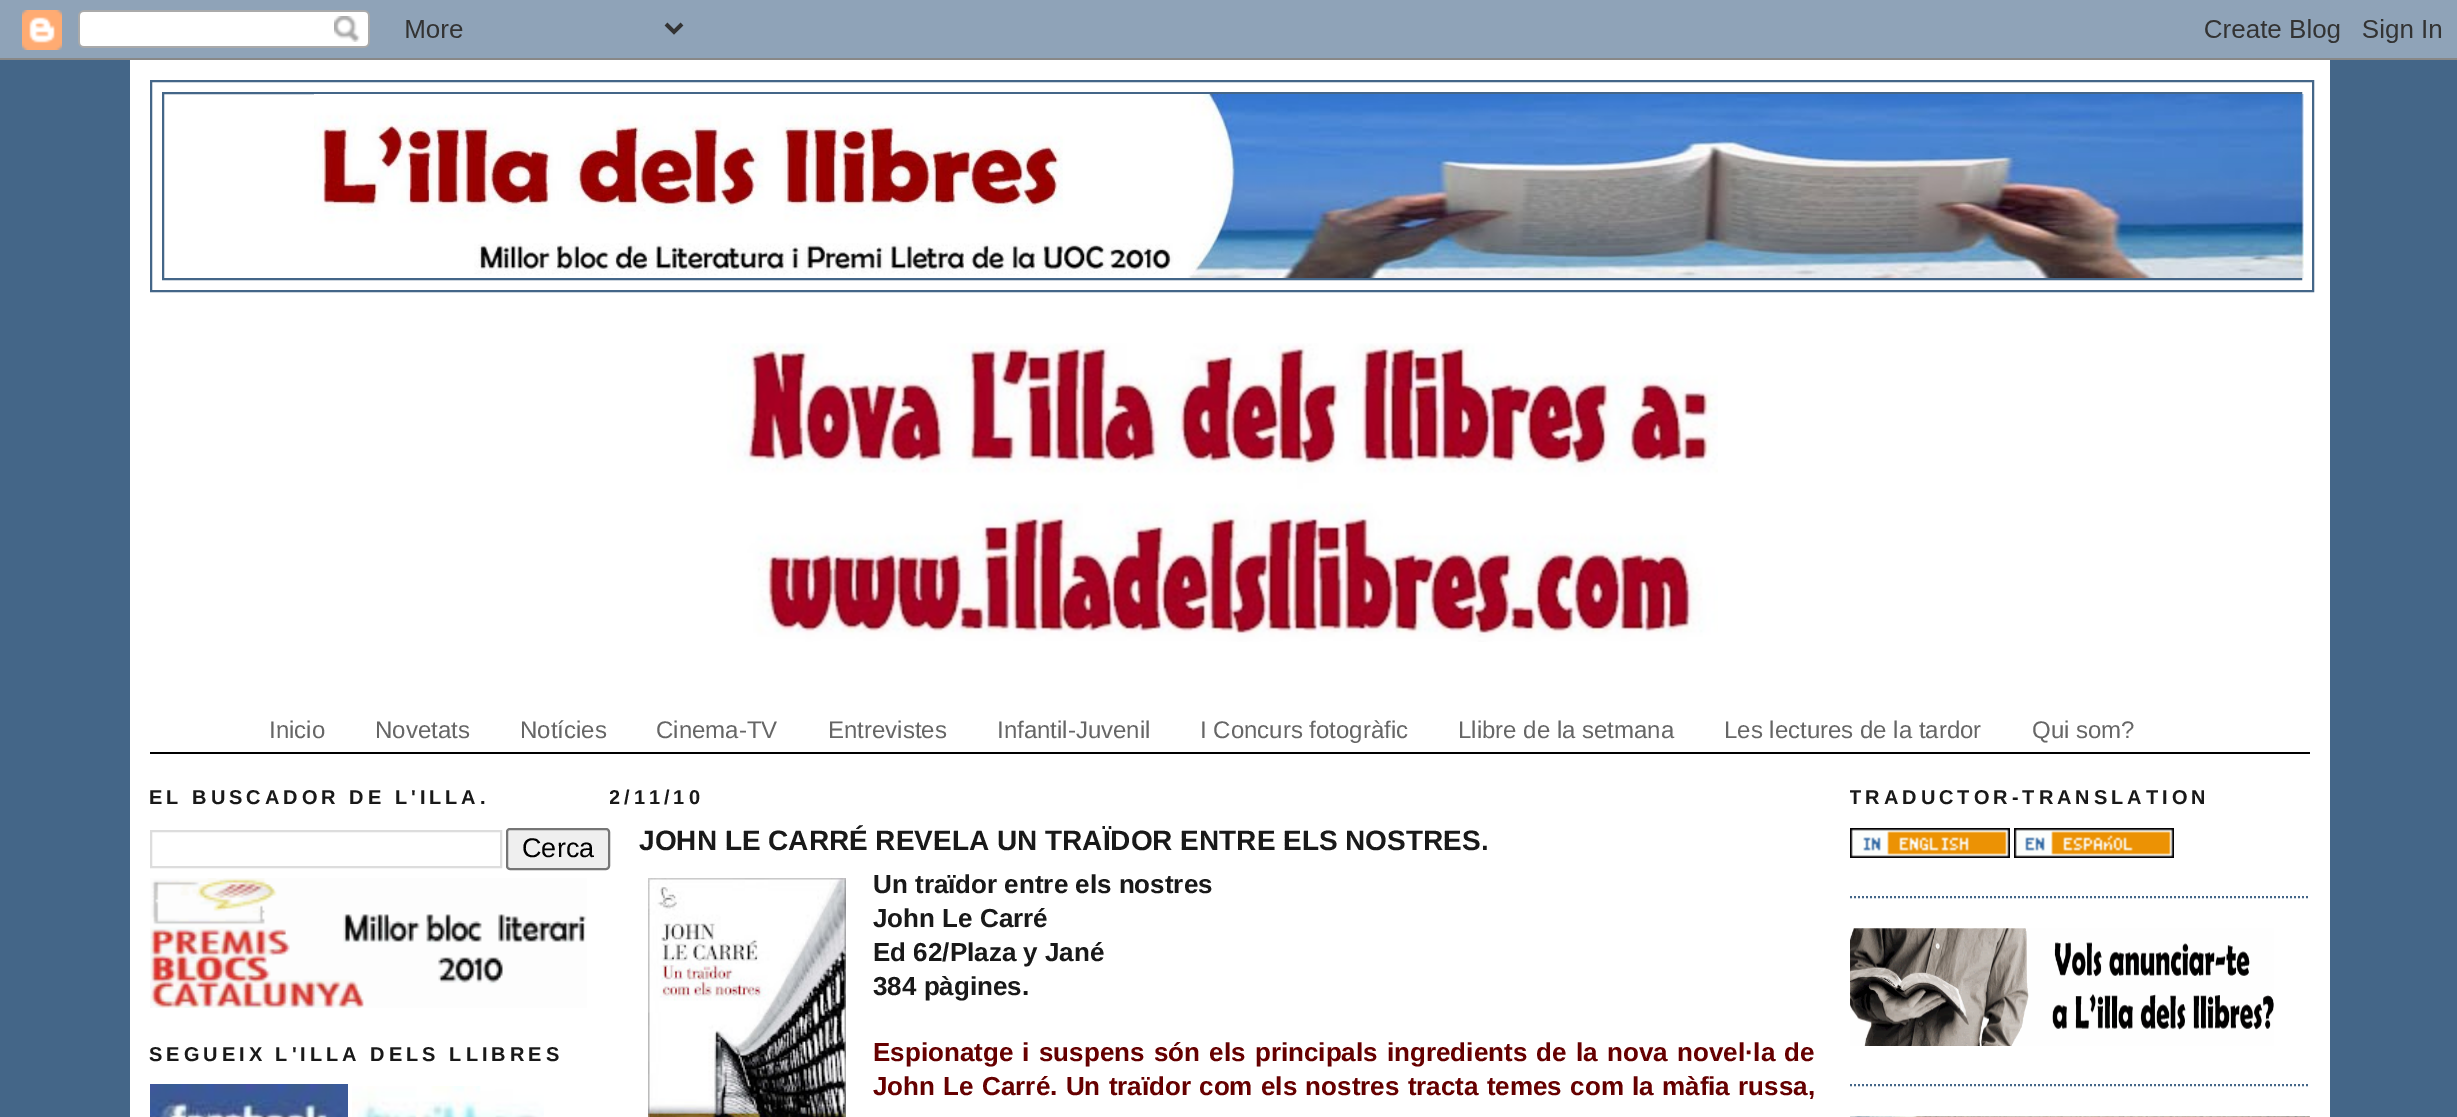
%!PS
<< /PageSize [2457 1117] >> setpagedevice
/rgb { 3 { 255 div 3 1 roll } repeat setrgbcolor } def
/font { [ exch dup neg 0 0 3 -1 roll 0 0 ] selectfont } def
/text { moveto show } def
/roundrect { 5 dict begin { /r /h /w /y /x } { exch def } forall
  x r add y moveto x w add y 2 copy h add r arct x w add y h add x 1 index r arct
  x y h add x y r arct x y 2 copy exch w add exch r arct closepath end } def
/picture { 5 dict begin { /h /w /y /x /name } { exch def } forall
  gsave x y translate w h scale
  w h 8 [w 0 0 h 0 0] name (r) file false 3 colorimage grestore end } def
0 1117 translate 1 -1 scale
4 setmiterlimit
68 102 136 rgb
0 0 2457 1117 rectfill
(img_01.rgb) 0 0 2457 60 picture
255 255 255 rgb
130 60 2200 1057 rectfill
68 102 136 rgb
2 setlinewidth
151 81 2162 210 rectstroke
163 93 2138 186 rectstroke
(img_02.rgb) 314 94 1990 184 picture
(img_03.rgb) 727 343 991 299 picture
0 0 0 rgb
150 752 2160 2 rectfill
221 221 221 rgb
151 831 350 36 rectstroke
239 239 239 rgb
507 829 102 40 3 roundrect gsave fill grestore
118 118 118 rgb
stroke
(img_04.rgb) 150 878 437 130 picture
(img_05.rgb) 150 1084 198 33 picture
(img_06.rgb) 352 1086 192 31 picture
(img_07.rgb) 648 878 198 239 picture
68 102 136 rgb
[2 2] 0 setdash
1850 897 moveto 460 0 rlineto stroke
(img_08.rgb) 1850 828 160 30 picture
(img_09.rgb) 2014 828 160 30 picture
1850 1085 moveto 460 0 rlineto stroke
(img_10.rgb) 1850 928 424 118 picture
(img_11.rgb) 1850 1116 460 1 picture
/LiberationSans-Regular 24 font
102 102 102 rgb
(Inicio) 269 738 text
(Novetats) 375 738 text
(Notícies) 520 738 text
(Cinema-TV) 656 738 text
(Entrevistes) 828 738 text
(Infantil-Juvenil) 997 738 text
(I Concurs fotogràfic) 1200 738 text
(Llibre de la setmana) 1458 738 text
(Les lectures de la tardor) 1724 738 text
(Qui som?) 2032 738 text
/LiberationSans-Bold 20 font
25 25 25 rgb
149 804 moveto 4 0 (EL BUSCADOR DE L'ILLA.) ashow
/LiberationSans-Regular 27 font
0 0 0 rgb
(Cerca) 522 857 text
/LiberationSans-Bold 20 font
25 25 25 rgb
149 1061 moveto 4 0 (SEGUEIX L'ILLA DELS LLIBRES) ashow
gsave
610 754 1236 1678 rectclip
609 804 moveto 4 0 (2/11/10) ashow
grestore
/LiberationSans-Bold 28 font
(JOHN LE CARRÉ REVELA UN TRAÏDOR ENTRE ELS NOSTRES.) 639 850 text
/LiberationSans-Bold 26 font
(Un traïdor entre els nostres) 873 893 text
(John Le Carré) 873 927 text
(Ed 62/Plaza y Jané) 873 961 text
(384 pàgines.) 873 995 text
102 0 0 rgb
873 1061 moveto 2.1 0 32 (Espionatge i suspens són els principals ingredients de la nova novel·la de) widthshow
873 1095 moveto 1.1 0 32 (John Le Carré. Un traïdor com els nostres tracta temes com la màfia russa,) widthshow
gsave
1850 754 460 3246 rectclip
/LiberationSans-Bold 20 font
25 25 25 rgb
1849 804 moveto 4 0 (TRADUCTOR-TRANSLATION) ashow
grestore
showpage
